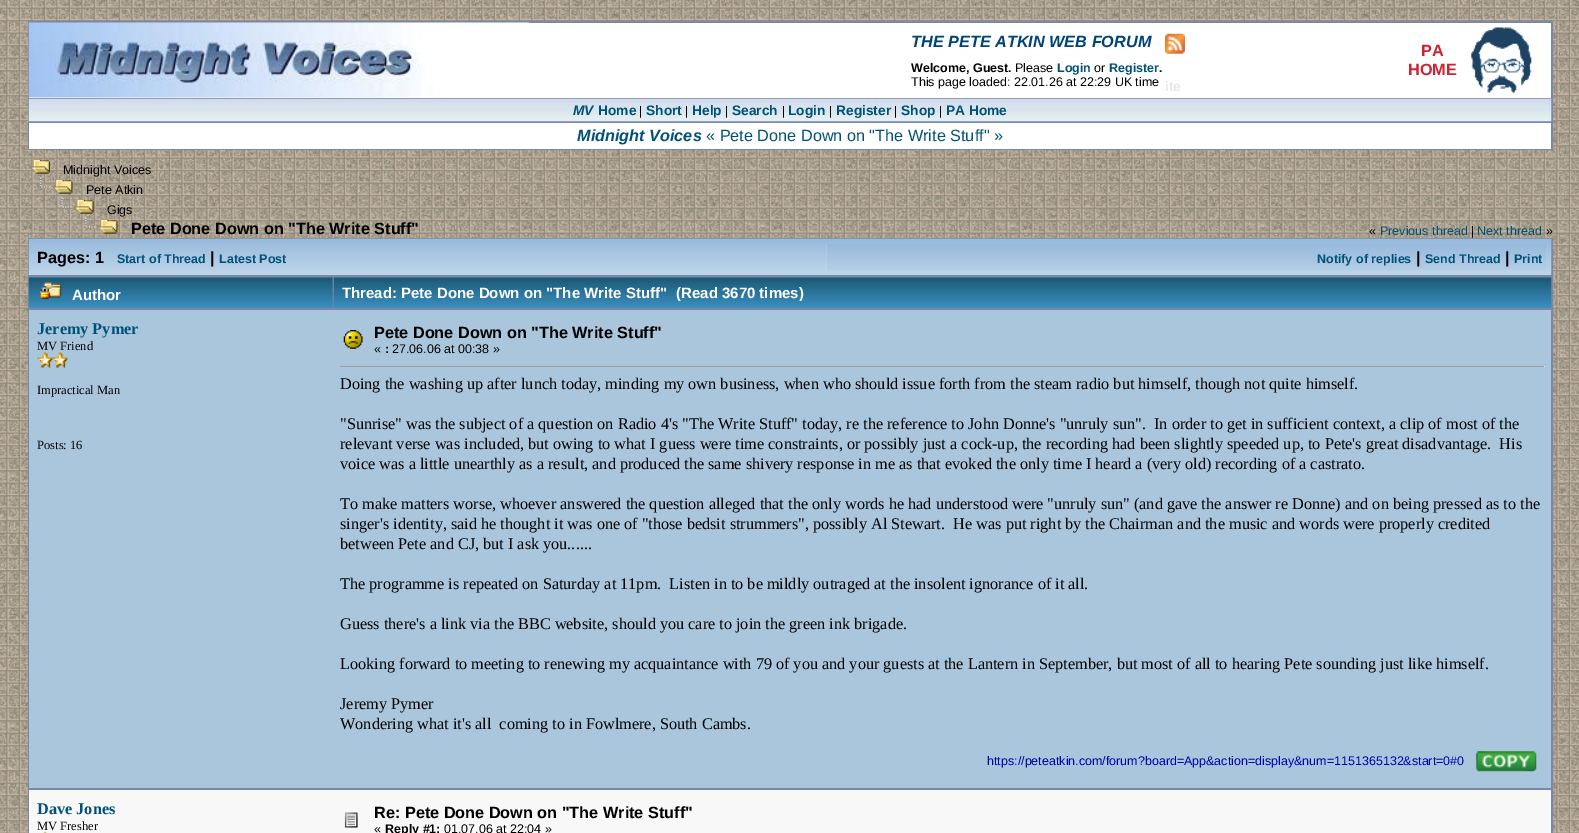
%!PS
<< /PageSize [1579 833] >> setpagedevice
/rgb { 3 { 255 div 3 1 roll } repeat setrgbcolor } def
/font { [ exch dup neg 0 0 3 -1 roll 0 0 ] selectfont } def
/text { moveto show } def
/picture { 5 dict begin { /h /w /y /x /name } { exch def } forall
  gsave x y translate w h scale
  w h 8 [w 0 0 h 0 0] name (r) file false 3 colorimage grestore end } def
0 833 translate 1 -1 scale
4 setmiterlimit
255 255 255 rgb
0 0 1579 833 rectfill
(img_01.rgb) 0 0 1579 833 picture
119 136 170 rgb
28 21 1525 129 rectfill
255 255 255 rgb
29 23 1522 75 rectfill
(img_02.rgb) 28 22 501 76 picture
(img_03.rgb) 1165 33 20 21 picture
(img_04.rgb) 1471 27 61 67 picture
(img_05.rgb) 28 98 1524 24 picture
29 123 1522 26 rectfill
(img_06.rgb) 30 158 20 16 picture
(img_07.rgb) 39 177 11 11 picture
(img_08.rgb) 52 178 21 16 picture
(img_09.rgb) 61 197 11 11 picture
(img_10.rgb) 73 198 21 16 picture
(img_11.rgb) 84 217 11 11 picture
(img_12.rgb) 97 218 21 16 picture
119 136 170 rgb
28 238 1525 595 rectfill
(img_13.rgb) 28 238 1524 37 picture
(img_14.rgb) 826 244 720 26 picture
85 136 170 rgb
29 278 304 30 rectfill
(img_15.rgb) 28 277 305 31 picture
(img_16.rgb) 39 282 23 17 picture
334 307 1217 1 rectfill
(img_17.rgb) 333 277 1219 31 picture
170 198 221 rgb
29 310 1522 478 rectfill
(img_18.rgb) 37 352 16 16 picture
(img_19.rgb) 52 352 16 16 picture
(img_20.rgb) 343 330 20 19 picture
159 159 159 rgb
340 366 1205 1 rectfill
238 238 238 rgb
1544 366 1 1 rectfill
(img_21.rgb) 1476 751 61 21 picture
248 248 248 rgb
29 790 1522 43 rectfill
(img_22.rgb) 43 832 4 1 picture
(img_23.rgb) 344 812 14 16 picture
/LiberationSans-BoldItalic 16.25 font
0 68 119 rgb
(THE PETE ATKIN WEB FORUM) 911 47 text
/LiberationSans-Bold 12.5 font
0 0 0 rgb
(Welcome, Guest.) 911 72 text
/LiberationSans-Regular 12.5 font
(Please) 1015 72 text
/LiberationSans-Bold 12.5 font
0 81 119 rgb
(Login) 1057 72 text
/LiberationSans-Regular 12.5 font
0 0 0 rgb
(or) 1094 72 text
/LiberationSans-Bold 12.5 font
0 81 119 rgb
(Register) 1109 72 text
0 0 0 rgb
(.) 1159 72 text
/LiberationSans-Regular 12.5 font
(This page loaded: 22.01.26 at 22:29 UK time) 911 86 text
/LiberationSans-Bold 16.25 font
204 34 51 rgb
(PA) 1421 56 text
(HOME) 1408 75 text
/LiberationSans-BoldItalic 13.75 font
0 81 119 rgb
(MV) 573 115 text
/LiberationSans-Bold 13.75 font
(Home) 598 115 text
/LiberationSans-Regular 12.5 font
0 0 0 rgb
(|) 639 115 text
/LiberationSans-Bold 13.75 font
0 81 119 rgb
(Short) 646 115 text
/LiberationSans-Regular 12.5 font
0 0 0 rgb
(|) 685 115 text
/LiberationSans-Bold 13.75 font
0 81 119 rgb
(Help) 692 115 text
/LiberationSans-Regular 12.5 font
0 0 0 rgb
(|) 725 115 text
/LiberationSans-Bold 13.75 font
0 81 119 rgb
(Search) 732 115 text
/LiberationSans-Regular 12.5 font
0 0 0 rgb
(|) 782 115 text
/LiberationSans-Bold 13.75 font
0 81 119 rgb
(Login) 788 115 text
/LiberationSans-Regular 12.5 font
0 0 0 rgb
(|) 829 115 text
/LiberationSans-Bold 13.75 font
0 81 119 rgb
(Register) 836 115 text
/LiberationSans-Regular 12.5 font
0 0 0 rgb
(|) 894 115 text
/LiberationSans-Bold 13.75 font
0 81 119 rgb
(Shop) 901 115 text
/LiberationSans-Regular 12.5 font
0 0 0 rgb
(|) 939 115 text
/LiberationSans-Bold 13.75 font
233 233 233 rgb
(ite) 1165 91 text
0 81 119 rgb
(PA Home) 946 115 text
/LiberationSans-BoldItalic 16.25 font
(Midnight Voices) 577 141 text
/LiberationSans-Regular 16.25 font
(« Pete Done Down on "The Write Stuff" ») 706 141 text
/LiberationSans-Regular 12.5 font
0 0 0 rgb
(Midnight Voices) 63 174 text
(Pete Atkin) 86 194 text
(Gigs) 107 214 text
/LiberationSans-Bold 16.25 font
(Pete Done Down on "The Write Stuff") 131 234 text
/LiberationSans-Regular 12.5 font
(«) 1369 235 text
0 81 119 rgb
(Previous thread) 1380 235 text
0 0 0 rgb
(|) 1471 235 text
0 81 119 rgb
(Next thread) 1477 235 text
0 0 0 rgb
(») 1546 235 text
/LiberationSans-Bold 16.25 font
(Pages: 1) 37 263 text
/LiberationSans-Bold 12.5 font
0 81 119 rgb
(Start of Thread) 117 263 text
/LiberationSans-Bold 16.25 font
0 0 0 rgb
(|) 210 263 text
/LiberationSans-Bold 12.5 font
0 81 119 rgb
(Latest Post) 219 263 text
(Notify of replies) 1317 263 text
/LiberationSans-Bold 16.25 font
0 0 0 rgb
(|) 1416 263 text
/LiberationSans-Bold 12.5 font
0 81 119 rgb
(Send Thread) 1425 263 text
/LiberationSans-Bold 16.25 font
0 0 0 rgb
(|) 1505 263 text
/LiberationSans-Bold 12.5 font
0 81 119 rgb
(Print) 1514 263 text
/LiberationSans-Bold 15 font
255 255 255 rgb
(Author) 72 300 text
(Thread: Pete Done Down on "The Write Stuff") 342 298 text
(\(Read 3670 times\)) 676 298 text
/LiberationSerif-Bold 16.25 font
0 81 119 rgb
(Jeremy Pymer) 37 334 text
/LiberationSerif-Regular 12.5 font
0 0 0 rgb
(MV Friend) 37 350 text
(Impractical Man) 37 394 text
(Posts: 16) 37 449 text
/LiberationSans-Bold 16.25 font
(Pete Done Down on "The Write Stuff") 374 338 text
/LiberationSans-Regular 12.5 font
(«) 374 353 text
/LiberationSans-Bold 12.5 font
(:) 385 353 text
/LiberationSans-Regular 12.5 font
(27.06.06 at 00:38 ») 392 353 text
/LiberationSerif-Regular 16.25 font
(Doing the washing up after lunch today, minding my own business, when who should issue forth from the steam radio but himself, though not quite himself.) 340 389 text
("Sunrise" was the subject of a question on Radio 4's "The Write Stuff" today, re the reference to John Donne's "unruly sun".  In order to get in sufficient context, a clip of most of the) 340 429 text
(relevant verse was included, but owing to what I guess were time constraints, or possibly just a cock-up, the recording had been slightly speeded up, to Pete's great disadvantage.  His) 340 449 text
(voice was a little unearthly as a result, and produced the same shivery response in me as that evoked the only time I heard a \(very old\) recording of a castrato.) 340 469 text
(To make matters worse, whoever answered the question alleged that the only words he had understood were "unruly sun" \(and gave the answer re Donne\) and on being pressed as to the) 340 509 text
(singer's identity, said he thought it was one of "those bedsit strummers", possibly Al Stewart.  He was put right by the Chairman and the music and words were properly credited) 340 529 text
(between Pete and CJ, but I ask you......) 340 549 text
(The programme is repeated on Saturday at 11pm.  Listen in to be mildly outraged at the insolent ignorance of it all.) 340 589 text
(Guess there's a link via the BBC website, should you care to join the green ink brigade.) 340 629 text
(Looking forward to meeting to renewing my acquaintance with 79 of you and your guests at the Lantern in September, but most of all to hearing Pete sounding just like himself.) 340 669 text
(Jeremy Pymer) 340 709 text
(Wondering what it's all  coming to in Fowlmere, South Cambs.) 340 729 text
/LiberationSans-Regular 12.5 font
0 0 170 rgb
(https://peteatkin.com/forum?board=App&action=display&num=1151365132&start=0#0) 987 765 text
/LiberationSerif-Bold 16.25 font
0 81 119 rgb
(Dave Jones) 37 814 text
/LiberationSerif-Regular 12.5 font
0 0 0 rgb
(MV Fresher) 37 830 text
/LiberationSans-Bold 16.25 font
(Re: Pete Done Down on "The Write Stuff") 374 818 text
/LiberationSans-Regular 12.5 font
(«) 374 833 text
/LiberationSans-Bold 12.5 font
(Reply #1:) 385 833 text
/LiberationSans-Regular 12.5 font
(01.07.06 at 22:04 ») 444 833 text
showpage
